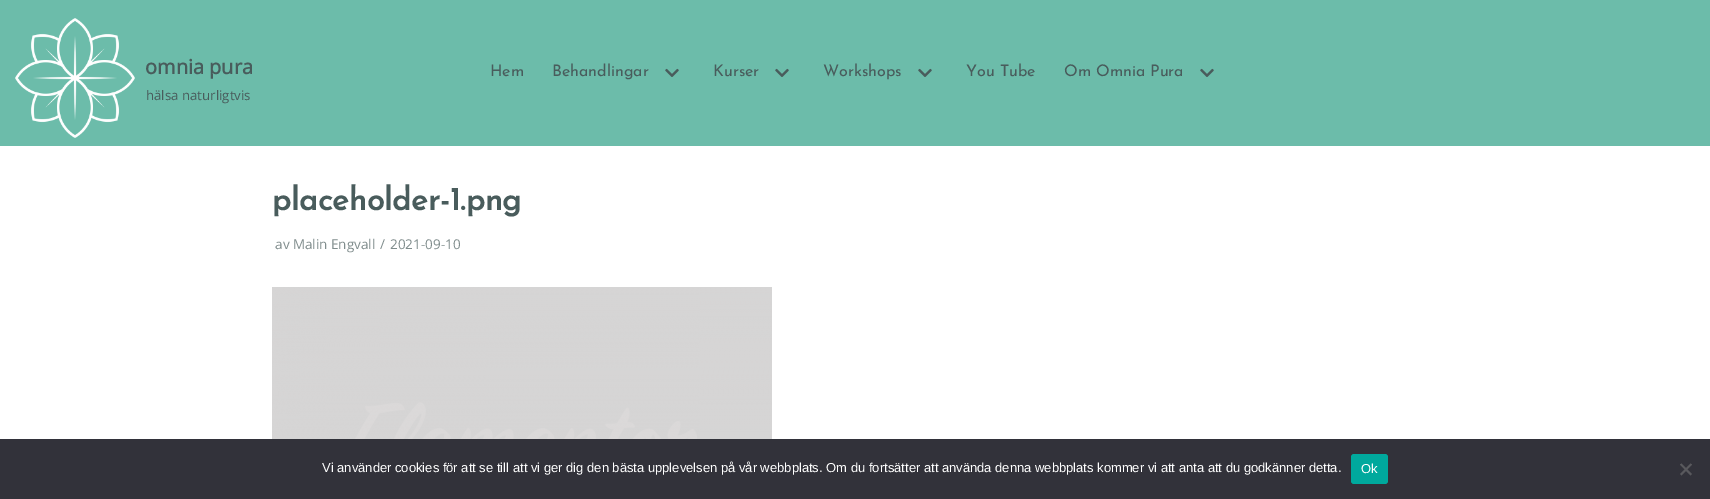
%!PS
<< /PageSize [1710 499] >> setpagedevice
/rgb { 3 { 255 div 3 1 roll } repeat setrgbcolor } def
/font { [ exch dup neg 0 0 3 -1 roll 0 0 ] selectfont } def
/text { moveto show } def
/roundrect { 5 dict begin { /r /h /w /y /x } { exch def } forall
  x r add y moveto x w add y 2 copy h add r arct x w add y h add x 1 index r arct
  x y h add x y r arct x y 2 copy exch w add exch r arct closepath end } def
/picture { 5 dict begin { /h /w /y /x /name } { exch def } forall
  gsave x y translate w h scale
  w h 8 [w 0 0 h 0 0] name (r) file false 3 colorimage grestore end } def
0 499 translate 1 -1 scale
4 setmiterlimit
255 255 255 rgb
0 0 1710 499 rectfill
108 188 170 rgb
0 0 1710 146 rectfill
(img_01.rgb) 15 18 120 120 picture
(img_02.rgb) 665 68 14 9 picture
(img_02.rgb) 775 68 14 9 picture
(img_02.rgb) 918 68 14 9 picture
(img_02.rgb) 1200 68 14 9 picture
(img_03.rgb) 272 287 500 152 picture
50 50 58 rgb
0 439 1710 60 rectfill
0 169 157 rgb
1351 454 37 30 3 roundrect fill
89 89 93 rgb
1690.5 463.5 moveto 1.5 1 rlineto -10.5 11 rlineto -1.5 -1.5 rlineto closepath fill
1680 464.5 moveto 1.5 -1 rlineto 10.5 10.5 rlineto -1.5 1.5 rlineto closepath fill
/OpenSans-Bold 20 font
73 92 92 rgb
(omnia pura) 145 74 text
/OpenSans-Regular 13.25 font
(hälsa naturligtvis) 146 100 text
/JosefinSans-Thin 16 font
(Hem) 490 76 text
(Behandlingar) 552 76 text
(Kurser) 713 76 text
(Workshops) 823 76 text
(You Tube) 966 76 text
(Om Omnia Pura) 1064 76 text
/JosefinSans-Bold 32 font
(placeholder-1.png) 272 210 text
/OpenSans-Regular 13.5 font
128 141 141 rgb
(av Malin Engvall) 275 249 text
(/) 380 249 text
(2021-09-10) 390 249 text
/LiberationSans-Regular 13 font
255 255 255 rgb
(Vi använder cookies för att se till att vi ger dig den bästa upplevelsen på vår webbplats. Om du fortsätter att använda denna webbplats kommer vi att anta att du godkänner detta.) 322 472 text
(Ok) 1361 473 text
showpage
